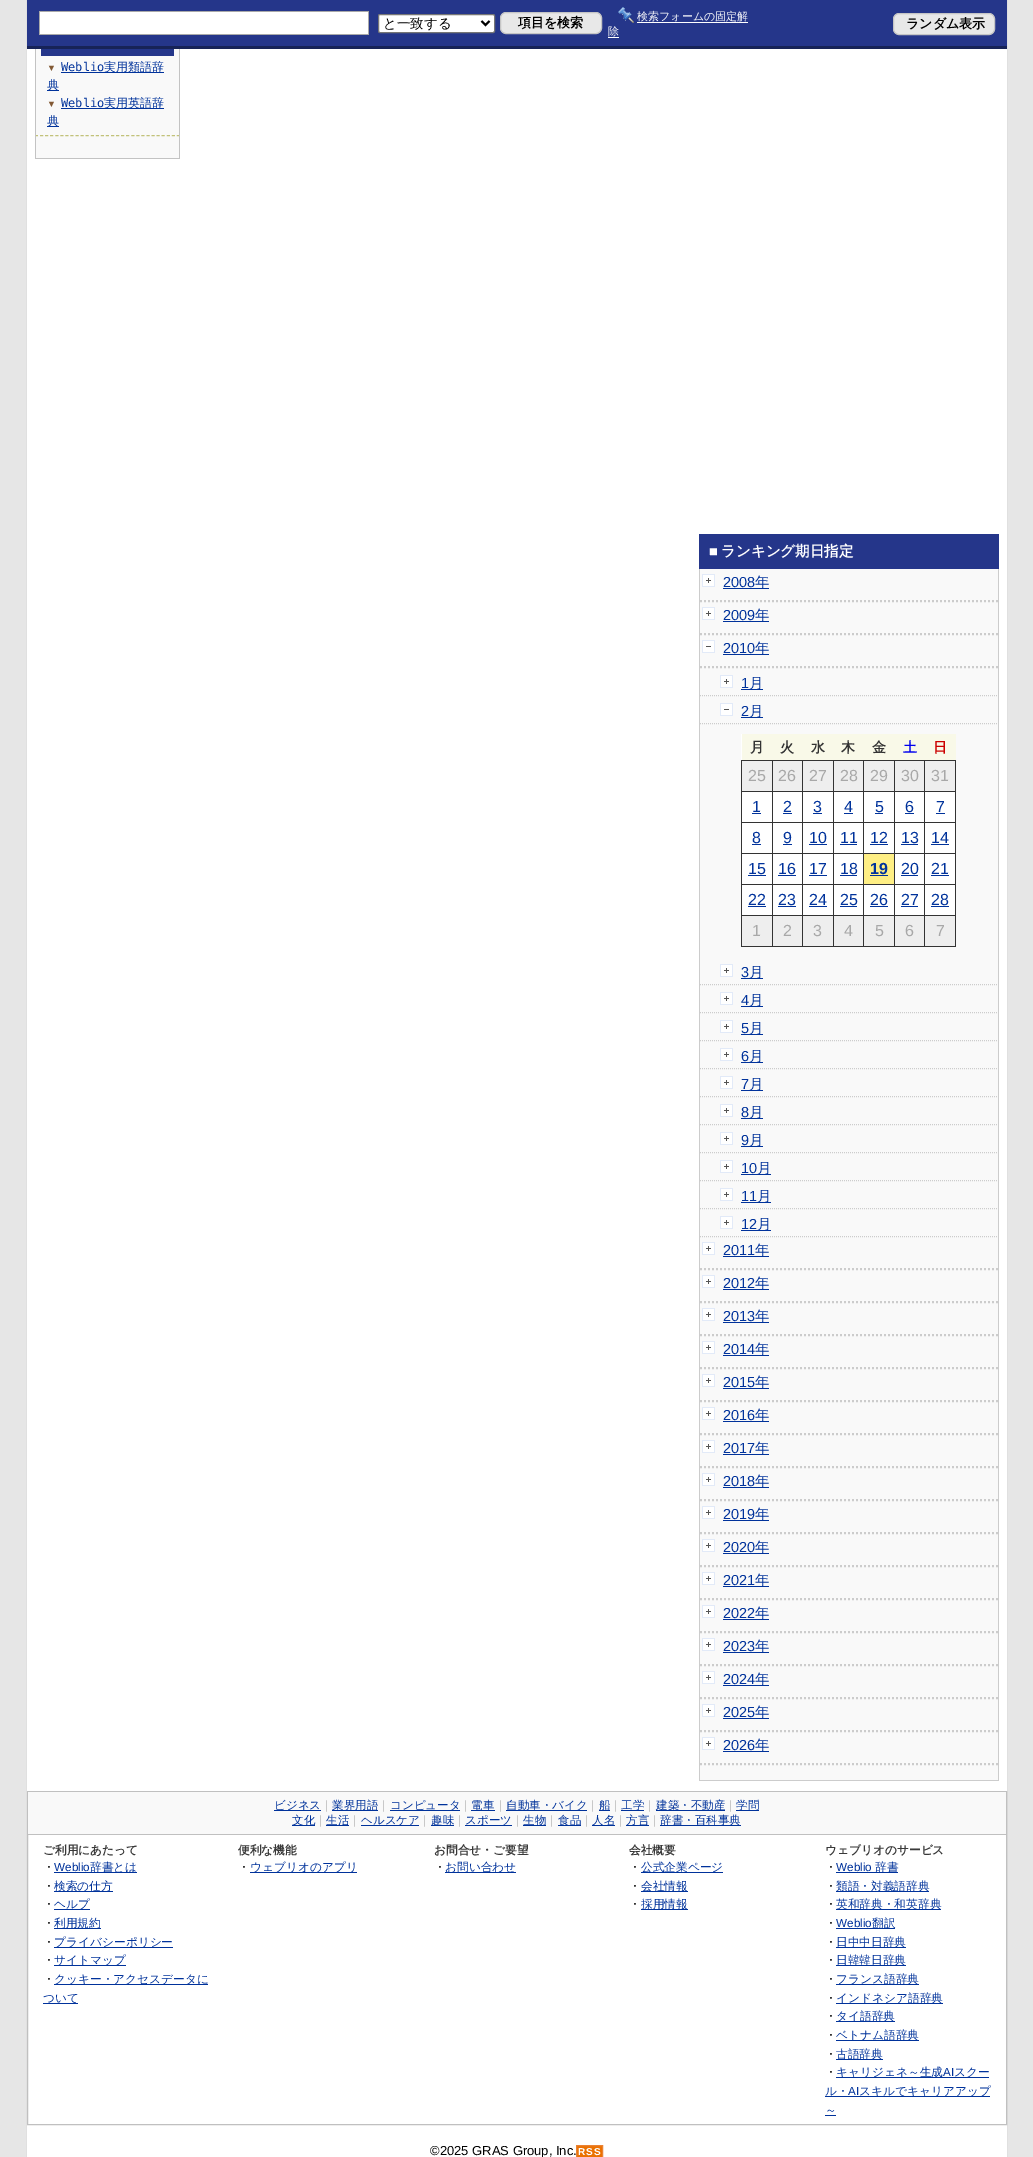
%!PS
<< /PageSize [1033 2157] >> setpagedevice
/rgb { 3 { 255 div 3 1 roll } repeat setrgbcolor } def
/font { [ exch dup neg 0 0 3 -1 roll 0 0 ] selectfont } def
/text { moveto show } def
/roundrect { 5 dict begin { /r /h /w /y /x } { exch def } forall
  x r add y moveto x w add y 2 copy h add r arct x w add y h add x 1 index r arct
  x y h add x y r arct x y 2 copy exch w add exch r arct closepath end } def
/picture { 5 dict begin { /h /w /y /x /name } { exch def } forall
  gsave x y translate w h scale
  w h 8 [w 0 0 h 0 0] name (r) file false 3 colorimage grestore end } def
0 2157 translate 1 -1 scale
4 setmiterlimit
230 230 230 rgb
0 0 1033 2157 rectfill
255 255 255 rgb
27 49 980 2108 rectfill
224 224 224 rgb
1007 0 1 2157 rectfill
26 0 1 2157 rectfill
37 54 138 rgb
27 0 980 46 rectfill
23 35 87 rgb
27 46 980 3 rectfill
255 255 255 rgb
40 12 328 22 rectfill
169 169 169 rgb
39 11 330 1 rectfill
368 11 1 24 rectfill
39 34 330 1 rectfill
39 11 1 24 rectfill
255 255 255 rgb
378.5 14.5 116 18 1.5 roundrect gsave fill grestore
118 118 118 rgb
stroke
0 0 0 rgb
2 setlinewidth
481.5 21 moveto 4 4 rlineto 4 -4 rlineto stroke
232 232 232 rgb
500.5 12.5 101 21 5.5 roundrect gsave fill grestore
197 197 197 rgb
1 setlinewidth
stroke
(img_01.rgb) 618 7 16 16 picture
255 255 255 rgb
637 22 111 1 rectfill
608 37 11 1 rectfill
232 232 232 rgb
893.5 13.5 101 21 5.5 roundrect gsave fill grestore
197 197 197 rgb
stroke
249 249 249 rgb
36 49 143 109 rectfill
195 195 195 rgb
179 49 1 86 rectfill
35 49 1 86 rectfill
37 54 138 rgb
41 49 133 7 rectfill
0 50 155 rgb
61 72 103 1 rectfill
47 90 12 1 rectfill
61 108 103 1 rectfill
47 126 12 1 rectfill
194 194 122 rgb
[3 2.07] 0 setdash
35 135.5 moveto 145 0 rlineto stroke
195 195 195 rgb
179 135 1 24 rectfill
35 135 1 12 rectfill
35 158 145 1 rectfill
35 147 1 12 rectfill
37 54 138 rgb
699 534 300 35 rectfill
249 249 249 rgb
700 569 298 1211 rectfill
204 204 204 rgb
998 569 1 1212 rectfill
699 1780 300 1 rectfill
699 569 1 1212 rectfill
2 setlinewidth
[2 2] 0 setdash
700 601 moveto 298 0 rlineto stroke
(img_02.rgb) 702 574 13 13 picture
0 50 155 rgb
723 588 46 1 rectfill
204 204 204 rgb
700 634 moveto 298 0 rlineto stroke
(img_02.rgb) 702 607 13 13 picture
0 50 155 rgb
723 621 46 1 rectfill
204 204 204 rgb
700 667 moveto 298 0 rlineto stroke
(img_03.rgb) 702 640 13 13 picture
0 50 155 rgb
723 654 46 1 rectfill
204 204 204 rgb
1 setlinewidth
[1 1] 0 setdash
700 695.5 moveto 298 0 rlineto stroke
(img_02.rgb) 720 675 13 13 picture
0 50 155 rgb
741 689 22 1 rectfill
204 204 204 rgb
700 723.5 moveto 298 0 rlineto stroke
(img_03.rgb) 720 703 13 13 picture
0 50 155 rgb
741 717 22 1 rectfill
255 255 255 rgb
741 734 214 181 rectfill
249 249 232 rgb
742 734 214 26 rectfill
238 238 238 rgb
742 761 30 30 rectfill
51 51 51 rgb
924 760 32 1 rectfill
924 791 32 1 rectfill
924 822 32 1 rectfill
924 853 32 1 rectfill
924 884 32 1 rectfill
924 915 32 1 rectfill
955 915 1 32 rectfill
924 946 32 1 rectfill
924 915 1 32 rectfill
894 915 31 1 rectfill
924 884 1 32 rectfill
894 884 31 1 rectfill
924 853 1 32 rectfill
894 853 31 1 rectfill
924 822 1 32 rectfill
894 822 31 1 rectfill
924 791 1 32 rectfill
894 791 31 1 rectfill
924 760 1 32 rectfill
894 760 31 1 rectfill
894 946 31 1 rectfill
894 915 1 32 rectfill
863 915 32 1 rectfill
894 884 1 32 rectfill
863 884 32 1 rectfill
894 853 1 32 rectfill
863 853 32 1 rectfill
894 822 1 32 rectfill
863 822 32 1 rectfill
894 791 1 32 rectfill
863 791 32 1 rectfill
894 760 1 32 rectfill
863 760 32 1 rectfill
863 946 32 1 rectfill
863 915 1 32 rectfill
833 915 31 1 rectfill
863 884 1 32 rectfill
833 884 31 1 rectfill
863 853 1 32 rectfill
833 853 31 1 rectfill
863 822 1 32 rectfill
833 822 31 1 rectfill
863 791 1 32 rectfill
833 791 31 1 rectfill
863 760 1 32 rectfill
833 760 31 1 rectfill
833 946 31 1 rectfill
833 915 1 32 rectfill
802 915 32 1 rectfill
833 884 1 32 rectfill
802 884 32 1 rectfill
833 853 1 32 rectfill
802 853 32 1 rectfill
833 822 1 32 rectfill
802 822 32 1 rectfill
833 791 1 32 rectfill
802 791 32 1 rectfill
833 760 1 32 rectfill
802 760 32 1 rectfill
802 946 32 1 rectfill
802 915 1 32 rectfill
772 915 31 1 rectfill
802 884 1 32 rectfill
772 884 31 1 rectfill
802 853 1 32 rectfill
772 853 31 1 rectfill
802 822 1 32 rectfill
772 822 31 1 rectfill
802 791 1 32 rectfill
772 791 31 1 rectfill
802 760 1 32 rectfill
772 760 31 1 rectfill
772 946 31 1 rectfill
772 915 1 32 rectfill
741 915 32 1 rectfill
772 884 1 32 rectfill
741 884 32 1 rectfill
772 853 1 32 rectfill
741 853 32 1 rectfill
772 822 1 32 rectfill
741 822 32 1 rectfill
772 791 1 32 rectfill
741 791 32 1 rectfill
772 760 1 32 rectfill
741 760 32 1 rectfill
741 946 32 1 rectfill
741 915 1 32 rectfill
741 884 1 32 rectfill
741 853 1 32 rectfill
741 822 1 32 rectfill
741 791 1 32 rectfill
741 760 1 32 rectfill
238 238 238 rgb
773 761 29 30 rectfill
803 761 30 30 rectfill
834 761 29 30 rectfill
864 761 30 30 rectfill
895 761 29 30 rectfill
925 761 30 30 rectfill
51 51 51 rgb
955 884 1 32 rectfill
955 853 1 32 rectfill
955 822 1 32 rectfill
955 791 1 32 rectfill
955 760 1 32 rectfill
0 50 155 rgb
752 813 9 1 rectfill
783 813 9 1 rectfill
813 813 9 1 rectfill
844 813 9 1 rectfill
875 813 8 1 rectfill
905 813 9 1 rectfill
936 813 9 1 rectfill
752 844 9 1 rectfill
783 844 9 1 rectfill
809 844 18 1 rectfill
840 844 17 1 rectfill
870 844 18 1 rectfill
901 844 17 1 rectfill
931 844 18 1 rectfill
748 875 18 1 rectfill
778 875 18 1 rectfill
809 875 18 1 rectfill
840 875 17 1 rectfill
255 239 132 rgb
864 854 30 30 rectfill
0 50 155 rgb
870 875 18 1 rectfill
901 875 17 1 rectfill
931 875 18 1 rectfill
748 906 18 1 rectfill
778 906 18 1 rectfill
809 906 18 1 rectfill
840 906 17 1 rectfill
870 906 18 1 rectfill
901 906 17 1 rectfill
931 906 18 1 rectfill
238 238 238 rgb
742 916 30 30 rectfill
773 916 29 30 rectfill
803 916 30 30 rectfill
834 916 29 30 rectfill
864 916 30 30 rectfill
895 916 29 30 rectfill
925 916 30 30 rectfill
204 204 204 rgb
700 984.5 moveto 298 0 rlineto stroke
(img_02.rgb) 720 964 13 13 picture
0 50 155 rgb
741 978 22 1 rectfill
204 204 204 rgb
700 1012.5 moveto 298 0 rlineto stroke
(img_02.rgb) 720 992 13 13 picture
0 50 155 rgb
741 1006 22 1 rectfill
204 204 204 rgb
700 1040.5 moveto 298 0 rlineto stroke
(img_02.rgb) 720 1020 13 13 picture
0 50 155 rgb
741 1034 22 1 rectfill
204 204 204 rgb
700 1068.5 moveto 298 0 rlineto stroke
(img_02.rgb) 720 1048 13 13 picture
0 50 155 rgb
741 1062 22 1 rectfill
204 204 204 rgb
700 1096.5 moveto 298 0 rlineto stroke
(img_02.rgb) 720 1076 13 13 picture
0 50 155 rgb
741 1090 22 1 rectfill
204 204 204 rgb
700 1124.5 moveto 298 0 rlineto stroke
(img_02.rgb) 720 1104 13 13 picture
0 50 155 rgb
741 1118 22 1 rectfill
204 204 204 rgb
700 1152.5 moveto 298 0 rlineto stroke
(img_02.rgb) 720 1132 13 13 picture
0 50 155 rgb
741 1146 22 1 rectfill
204 204 204 rgb
700 1180.5 moveto 298 0 rlineto stroke
(img_02.rgb) 720 1160 13 13 picture
0 50 155 rgb
741 1174 30 1 rectfill
204 204 204 rgb
700 1208.5 moveto 298 0 rlineto stroke
(img_02.rgb) 720 1188 13 13 picture
0 50 155 rgb
741 1202 30 1 rectfill
204 204 204 rgb
700 1236.5 moveto 298 0 rlineto stroke
(img_02.rgb) 720 1216 13 13 picture
0 50 155 rgb
741 1230 30 1 rectfill
204 204 204 rgb
2 setlinewidth
[2 2] 0 setdash
700 1269 moveto 298 0 rlineto stroke
(img_02.rgb) 702 1242 13 13 picture
0 50 155 rgb
723 1256 46 1 rectfill
204 204 204 rgb
700 1302 moveto 298 0 rlineto stroke
(img_02.rgb) 702 1275 13 13 picture
0 50 155 rgb
723 1289 46 1 rectfill
204 204 204 rgb
700 1335 moveto 298 0 rlineto stroke
(img_02.rgb) 702 1308 13 13 picture
0 50 155 rgb
723 1322 46 1 rectfill
204 204 204 rgb
700 1368 moveto 298 0 rlineto stroke
(img_02.rgb) 702 1341 13 13 picture
0 50 155 rgb
723 1355 46 1 rectfill
204 204 204 rgb
700 1401 moveto 298 0 rlineto stroke
(img_02.rgb) 702 1374 13 13 picture
0 50 155 rgb
723 1388 46 1 rectfill
204 204 204 rgb
700 1434 moveto 298 0 rlineto stroke
(img_02.rgb) 702 1407 13 13 picture
0 50 155 rgb
723 1421 46 1 rectfill
204 204 204 rgb
700 1467 moveto 298 0 rlineto stroke
(img_02.rgb) 702 1440 13 13 picture
0 50 155 rgb
723 1454 46 1 rectfill
204 204 204 rgb
700 1500 moveto 298 0 rlineto stroke
(img_02.rgb) 702 1473 13 13 picture
0 50 155 rgb
723 1487 46 1 rectfill
204 204 204 rgb
700 1533 moveto 298 0 rlineto stroke
(img_02.rgb) 702 1506 13 13 picture
0 50 155 rgb
723 1520 46 1 rectfill
204 204 204 rgb
700 1566 moveto 298 0 rlineto stroke
(img_02.rgb) 702 1539 13 13 picture
0 50 155 rgb
723 1553 46 1 rectfill
204 204 204 rgb
700 1599 moveto 298 0 rlineto stroke
(img_02.rgb) 702 1572 13 13 picture
0 50 155 rgb
723 1586 46 1 rectfill
204 204 204 rgb
700 1632 moveto 298 0 rlineto stroke
(img_02.rgb) 702 1605 13 13 picture
0 50 155 rgb
723 1619 46 1 rectfill
204 204 204 rgb
700 1665 moveto 298 0 rlineto stroke
(img_02.rgb) 702 1638 13 13 picture
0 50 155 rgb
723 1652 46 1 rectfill
204 204 204 rgb
700 1698 moveto 298 0 rlineto stroke
(img_02.rgb) 702 1671 13 13 picture
0 50 155 rgb
723 1685 46 1 rectfill
204 204 204 rgb
700 1731 moveto 298 0 rlineto stroke
(img_02.rgb) 702 1704 13 13 picture
0 50 155 rgb
723 1718 46 1 rectfill
204 204 204 rgb
700 1764 moveto 298 0 rlineto stroke
(img_02.rgb) 702 1737 13 13 picture
0 50 155 rgb
723 1751 46 1 rectfill
192 192 192 rgb
1 setlinewidth
[] 0 setdash
27.5 1791.5 979 333 rectstroke
249 249 249 rgb
28 1792 978 42 rectfill
192 192 192 rgb
28 1834 978 1 rectfill
0 50 155 rgb
274 1810 47 1 rectfill
332 1810 46 1 rectfill
390 1810 70 1 rectfill
471 1810 24 1 rectfill
506 1810 81 1 rectfill
599 1810 11 1 rectfill
621 1810 23 1 rectfill
656 1810 69 1 rectfill
736 1810 23 1 rectfill
292 1825 23 1 rectfill
326 1825 23 1 rectfill
361 1825 58 1 rectfill
431 1825 23 1 rectfill
465 1825 47 1 rectfill
523 1825 23 1 rectfill
558 1825 23 1 rectfill
592 1825 23 1 rectfill
626 1825 23 1 rectfill
660 1825 81 1 rectfill
54 1872 83 1 rectfill
54 1891 59 1 rectfill
54 1909 36 1 rectfill
54 1928 47 1 rectfill
54 1947 119 1 rectfill
54 1965 72 1 rectfill
54 1984 154 1 rectfill
43 2003 35 1 rectfill
250 1872 107 1 rectfill
445 1872 71 1 rectfill
641 1872 82 1 rectfill
641 1891 47 1 rectfill
641 1909 47 1 rectfill
836 1872 62 1 rectfill
836 1891 93 1 rectfill
836 1909 105 1 rectfill
836 1928 59 1 rectfill
836 1947 70 1 rectfill
836 1965 70 1 rectfill
836 1984 83 1 rectfill
836 2003 107 1 rectfill
836 2021 59 1 rectfill
836 2040 83 1 rectfill
836 2059 47 1 rectfill
836 2077 153 1 rectfill
825 2096 165 1 rectfill
825 2115 11 1 rectfill
235 113 1 rgb
576.5 2145.5 moveto 26 0 rlineto 0 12 rlineto -26 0 rlineto closepath gsave fill grestore
234 130 51 rgb
stroke
/WenQuanYiZenHei-Medium 13.5 font
0 0 0 rgb
(と一致する) 383 28 text
/WenQuanYiZenHei-Bold 13 font
(項目を検索) 518 27 text
/WenQuanYiZenHei-Medium 11 font
255 255 255 rgb
(検索フォームの固定解) 637 20 text
(除) 608 35 text
/WenQuanYiZenHei-Bold 13 font
0 0 0 rgb
(ランダム表示) 906 28 text
/LiberationSans-Regular 9 font
130 89 52 rgb
(▼) 47 71 text
/DejaVuSansMono-Regular 12 font
0 50 155 rgb
(Weblio) 61 71 text
/WenQuanYiZenHei-Medium 12 font
(実用類語辞) 104 71 text
(典) 47 89 text
/LiberationSans-Regular 9 font
130 89 52 rgb
(▼) 47 107 text
/DejaVuSansMono-Regular 12 font
0 50 155 rgb
(Weblio) 61 107 text
/WenQuanYiZenHei-Medium 12 font
(実用英語辞) 104 107 text
(典) 47 125 text
/LiberationSans-Bold 14.5 font
255 255 255 rgb
(■) 709 556 text
/WenQuanYiZenHei-Bold 14.5 font
(ランキング期日指定) 721 556 text
/LiberationSans-Regular 14.5 font
0 50 155 rgb
(2008) 723 587 text
/WenQuanYiZenHei-Medium 14.5 font
(年) 755 587 text
/LiberationSans-Regular 14.5 font
(2009) 723 620 text
/WenQuanYiZenHei-Medium 14.5 font
(年) 755 620 text
/LiberationSans-Regular 14.5 font
(2010) 723 653 text
/WenQuanYiZenHei-Medium 14.5 font
(年) 755 653 text
/LiberationSans-Regular 14.5 font
(1) 741 688 text
/WenQuanYiZenHei-Medium 14.5 font
(月) 749 688 text
/LiberationSans-Regular 14.5 font
(2) 741 716 text
/WenQuanYiZenHei-Medium 14.5 font
(月) 749 716 text
/WenQuanYiZenHei-Bold 14 font
51 51 51 rgb
(月) 750 752 text
(火) 780 752 text
(水) 811 752 text
(木) 841 752 text
(金) 872 752 text
0 0 238 rgb
(土) 903 752 text
204 0 0 rgb
(日) 933 752 text
/LiberationSans-Regular 16 font
168 168 168 rgb
(25) 748 781 text
(26) 778 781 text
(27) 809 781 text
(28) 840 781 text
(29) 870 781 text
(30) 901 781 text
(31) 931 781 text
0 50 155 rgb
(1) 752 812 text
(2) 783 812 text
(3) 813 812 text
(4) 844 812 text
(5) 875 812 text
(6) 905 812 text
(7) 936 812 text
(8) 752 843 text
(9) 783 843 text
(10) 809 843 text
(11) 840 843 text
(12) 870 843 text
(13) 901 843 text
(14) 931 843 text
(15) 748 874 text
(16) 778 874 text
(17) 809 874 text
(18) 840 874 text
/LiberationSans-Bold 16 font
(19) 870 874 text
/LiberationSans-Regular 16 font
(20) 901 874 text
(21) 931 874 text
(22) 748 905 text
(23) 778 905 text
(24) 809 905 text
(25) 840 905 text
(26) 870 905 text
(27) 901 905 text
(28) 931 905 text
168 168 168 rgb
(1) 752 936 text
(2) 783 936 text
(3) 813 936 text
(4) 844 936 text
(5) 875 936 text
(6) 905 936 text
(7) 936 936 text
/LiberationSans-Regular 14.5 font
0 50 155 rgb
(3) 741 977 text
/WenQuanYiZenHei-Medium 14.5 font
(月) 749 977 text
/LiberationSans-Regular 14.5 font
(4) 741 1005 text
/WenQuanYiZenHei-Medium 14.5 font
(月) 749 1005 text
/LiberationSans-Regular 14.5 font
(5) 741 1033 text
/WenQuanYiZenHei-Medium 14.5 font
(月) 749 1033 text
/LiberationSans-Regular 14.5 font
(6) 741 1061 text
/WenQuanYiZenHei-Medium 14.5 font
(月) 749 1061 text
/LiberationSans-Regular 14.5 font
(7) 741 1089 text
/WenQuanYiZenHei-Medium 14.5 font
(月) 749 1089 text
/LiberationSans-Regular 14.5 font
(8) 741 1117 text
/WenQuanYiZenHei-Medium 14.5 font
(月) 749 1117 text
/LiberationSans-Regular 14.5 font
(9) 741 1145 text
/WenQuanYiZenHei-Medium 14.5 font
(月) 749 1145 text
/LiberationSans-Regular 14.5 font
(10) 741 1173 text
/WenQuanYiZenHei-Medium 14.5 font
(月) 757 1173 text
/LiberationSans-Regular 14.5 font
(11) 741 1201 text
/WenQuanYiZenHei-Medium 14.5 font
(月) 757 1201 text
/LiberationSans-Regular 14.5 font
(12) 741 1229 text
/WenQuanYiZenHei-Medium 14.5 font
(月) 757 1229 text
/LiberationSans-Regular 14.5 font
(2011) 723 1255 text
/WenQuanYiZenHei-Medium 14.5 font
(年) 755 1255 text
/LiberationSans-Regular 14.5 font
(2012) 723 1288 text
/WenQuanYiZenHei-Medium 14.5 font
(年) 755 1288 text
/LiberationSans-Regular 14.5 font
(2013) 723 1321 text
/WenQuanYiZenHei-Medium 14.5 font
(年) 755 1321 text
/LiberationSans-Regular 14.5 font
(2014) 723 1354 text
/WenQuanYiZenHei-Medium 14.5 font
(年) 755 1354 text
/LiberationSans-Regular 14.5 font
(2015) 723 1387 text
/WenQuanYiZenHei-Medium 14.5 font
(年) 755 1387 text
/LiberationSans-Regular 14.5 font
(2016) 723 1420 text
/WenQuanYiZenHei-Medium 14.5 font
(年) 755 1420 text
/LiberationSans-Regular 14.5 font
(2017) 723 1453 text
/WenQuanYiZenHei-Medium 14.5 font
(年) 755 1453 text
/LiberationSans-Regular 14.5 font
(2018) 723 1486 text
/WenQuanYiZenHei-Medium 14.5 font
(年) 755 1486 text
/LiberationSans-Regular 14.5 font
(2019) 723 1519 text
/WenQuanYiZenHei-Medium 14.5 font
(年) 755 1519 text
/LiberationSans-Regular 14.5 font
(2020) 723 1552 text
/WenQuanYiZenHei-Medium 14.5 font
(年) 755 1552 text
/LiberationSans-Regular 14.5 font
(2021) 723 1585 text
/WenQuanYiZenHei-Medium 14.5 font
(年) 755 1585 text
/LiberationSans-Regular 14.5 font
(2022) 723 1618 text
/WenQuanYiZenHei-Medium 14.5 font
(年) 755 1618 text
/LiberationSans-Regular 14.5 font
(2023) 723 1651 text
/WenQuanYiZenHei-Medium 14.5 font
(年) 755 1651 text
/LiberationSans-Regular 14.5 font
(2024) 723 1684 text
/WenQuanYiZenHei-Medium 14.5 font
(年) 755 1684 text
/LiberationSans-Regular 14.5 font
(2025) 723 1717 text
/WenQuanYiZenHei-Medium 14.5 font
(年) 755 1717 text
/LiberationSans-Regular 14.5 font
(2026) 723 1750 text
/WenQuanYiZenHei-Medium 14.5 font
(年) 755 1750 text
/WenQuanYiZenHei-Medium 11.5 font
(ビジネス) 274 1809 text
158 158 158 rgb
(｜) 321 1809 text
0 50 155 rgb
(業界用語) 332 1809 text
158 158 158 rgb
(｜) 378 1809 text
0 50 155 rgb
(コンピュータ) 390 1809 text
158 158 158 rgb
(｜) 460 1809 text
0 50 155 rgb
(電車) 471 1809 text
158 158 158 rgb
(｜) 495 1809 text
0 50 155 rgb
(自動車・バイク) 506 1809 text
158 158 158 rgb
(｜) 587 1809 text
0 50 155 rgb
(船) 599 1809 text
158 158 158 rgb
(｜) 610 1809 text
0 50 155 rgb
(工学) 621 1809 text
158 158 158 rgb
(｜) 644 1809 text
0 50 155 rgb
(建築・不動産) 656 1809 text
158 158 158 rgb
(｜) 725 1809 text
0 50 155 rgb
(学問) 736 1809 text
(文化) 292 1824 text
158 158 158 rgb
(｜) 315 1824 text
0 50 155 rgb
(生活) 326 1824 text
158 158 158 rgb
(｜) 349 1824 text
0 50 155 rgb
(ヘルスケア) 361 1824 text
158 158 158 rgb
(｜) 419 1824 text
0 50 155 rgb
(趣味) 431 1824 text
158 158 158 rgb
(｜) 454 1824 text
0 50 155 rgb
(スポーツ) 465 1824 text
158 158 158 rgb
(｜) 512 1824 text
0 50 155 rgb
(生物) 523 1824 text
158 158 158 rgb
(｜) 546 1824 text
0 50 155 rgb
(食品) 558 1824 text
158 158 158 rgb
(｜) 581 1824 text
0 50 155 rgb
(人名) 592 1824 text
158 158 158 rgb
(｜) 615 1824 text
0 50 155 rgb
(方言) 626 1824 text
158 158 158 rgb
(｜) 649 1824 text
0 50 155 rgb
(辞書・百科事典) 660 1824 text
/WenQuanYiZenHei-Bold 11.7 font
57 57 57 rgb
(ご利用にあたって) 43 1854 text
/WenQuanYiZenHei-Medium 11.7 font
0 0 0 rgb
(・) 43 1871 text
/LiberationSans-Regular 11.7 font
0 50 155 rgb
(Weblio) 54 1871 text
/WenQuanYiZenHei-Medium 11.7 font
(辞書とは) 90 1871 text
0 0 0 rgb
(・) 43 1890 text
0 50 155 rgb
(検索の仕方) 54 1890 text
0 0 0 rgb
(・) 43 1908 text
0 50 155 rgb
(ヘルプ) 54 1908 text
0 0 0 rgb
(・) 43 1927 text
0 50 155 rgb
(利用規約) 54 1927 text
0 0 0 rgb
(・) 43 1946 text
0 50 155 rgb
(プライバシーポリシー) 54 1946 text
0 0 0 rgb
(・) 43 1964 text
0 50 155 rgb
(サイトマップ) 54 1964 text
0 0 0 rgb
(・) 43 1983 text
0 50 155 rgb
(クッキー・アクセスデータに) 54 1983 text
(ついて) 43 2002 text
/WenQuanYiZenHei-Bold 11.7 font
57 57 57 rgb
(便利な機能) 238 1854 text
/WenQuanYiZenHei-Medium 11.7 font
0 0 0 rgb
(・) 238 1871 text
0 50 155 rgb
(ウェブリオのアプリ) 250 1871 text
/WenQuanYiZenHei-Bold 11.7 font
57 57 57 rgb
(お問合せ・ご要望) 434 1854 text
/WenQuanYiZenHei-Medium 11.7 font
0 0 0 rgb
(・) 434 1871 text
0 50 155 rgb
(お問い合わせ) 445 1871 text
/WenQuanYiZenHei-Bold 11.7 font
57 57 57 rgb
(会社概要) 629 1854 text
/WenQuanYiZenHei-Medium 11.7 font
0 0 0 rgb
(・) 629 1871 text
0 50 155 rgb
(公式企業ページ) 641 1871 text
0 0 0 rgb
(・) 629 1890 text
0 50 155 rgb
(会社情報) 641 1890 text
0 0 0 rgb
(・) 629 1908 text
0 50 155 rgb
(採用情報) 641 1908 text
/WenQuanYiZenHei-Bold 11.7 font
57 57 57 rgb
(ウェブリオのサービス) 825 1854 text
/WenQuanYiZenHei-Medium 11.7 font
0 0 0 rgb
(・) 825 1871 text
/LiberationSans-Regular 11.7 font
0 50 155 rgb
(Weblio) 836 1871 text
/WenQuanYiZenHei-Medium 11.7 font
(辞書) 875 1871 text
0 0 0 rgb
(・) 825 1890 text
0 50 155 rgb
(類語・対義語辞典) 836 1890 text
0 0 0 rgb
(・) 825 1908 text
0 50 155 rgb
(英和辞典・和英辞典) 836 1908 text
0 0 0 rgb
(・) 825 1927 text
/LiberationSans-Regular 11.7 font
0 50 155 rgb
(Weblio) 836 1927 text
/WenQuanYiZenHei-Medium 11.7 font
(翻訳) 872 1927 text
0 0 0 rgb
(・) 825 1946 text
0 50 155 rgb
(日中中日辞典) 836 1946 text
0 0 0 rgb
(・) 825 1964 text
0 50 155 rgb
(日韓韓日辞典) 836 1964 text
0 0 0 rgb
(・) 825 1983 text
0 50 155 rgb
(フランス語辞典) 836 1983 text
0 0 0 rgb
(・) 825 2002 text
0 50 155 rgb
(インドネシア語辞典) 836 2002 text
0 0 0 rgb
(・) 825 2020 text
0 50 155 rgb
(タイ語辞典) 836 2020 text
0 0 0 rgb
(・) 825 2039 text
0 50 155 rgb
(ベトナム語辞典) 836 2039 text
0 0 0 rgb
(・) 825 2058 text
0 50 155 rgb
(古語辞典) 836 2058 text
0 0 0 rgb
(・) 825 2076 text
0 50 155 rgb
(キャリジェネ～生成) 836 2076 text
/LiberationSans-Regular 11.7 font
(AI) 943 2076 text
/WenQuanYiZenHei-Medium 11.7 font
(スクー) 954 2076 text
(ル・) 825 2095 text
/LiberationSans-Regular 11.7 font
(AI) 848 2095 text
/WenQuanYiZenHei-Medium 11.7 font
(スキルでキャリアアップ) 859 2095 text
(～) 825 2114 text
/LiberationSans-Regular 13 font
0 0 0 rgb
(©2025 GRAS Group, Inc.) 430 2155 text
/LiberationSans-Bold 10 font
255 255 255 rgb
578 2155 moveto 1 0 (RSS) ashow
showpage
